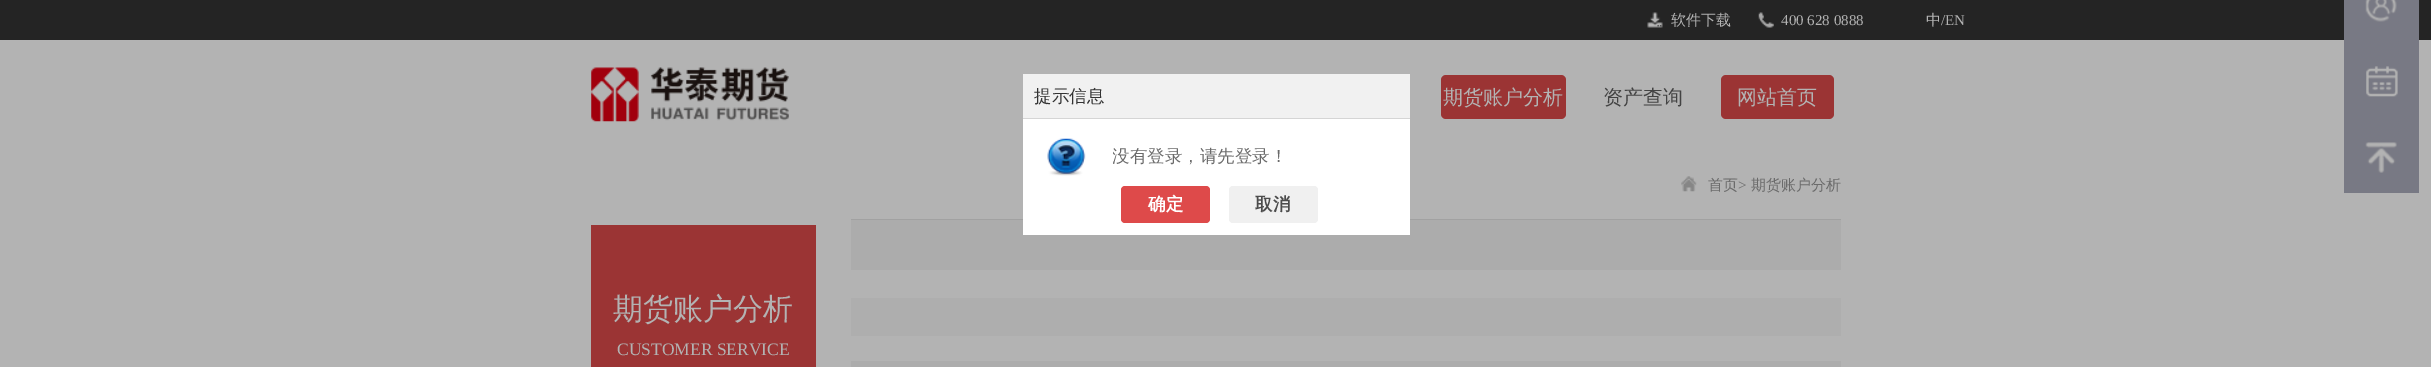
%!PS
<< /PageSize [2431 367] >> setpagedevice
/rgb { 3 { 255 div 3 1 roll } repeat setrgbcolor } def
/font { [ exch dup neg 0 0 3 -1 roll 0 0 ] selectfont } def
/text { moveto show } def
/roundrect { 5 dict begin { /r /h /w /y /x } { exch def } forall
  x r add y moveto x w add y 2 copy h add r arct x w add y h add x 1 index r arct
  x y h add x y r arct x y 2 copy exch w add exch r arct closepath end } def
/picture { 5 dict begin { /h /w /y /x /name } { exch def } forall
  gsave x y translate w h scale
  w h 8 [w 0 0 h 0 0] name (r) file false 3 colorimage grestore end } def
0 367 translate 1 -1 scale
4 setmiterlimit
179 179 179 rgb
0 0 2431 367 rectfill
36 36 36 rgb
0 0 2431 40 rectfill
(img_01.rgb) 1647 12 16 16 picture
(img_02.rgb) 1758 12 16 16 picture
120 121 132 rgb
2344 0 75 193 rectfill
(img_03.rgb) 2365 0 32 22 picture
(img_04.rgb) 2366 66 32 31 picture
(img_05.rgb) 2365 142 32 31 picture
161 161 161 rgb
851 219 990 1 rectfill
172 172 172 rgb
851 220 990 50 rectfill
255 255 255 rgb
1023 119 387 116 rectfill
241 241 241 rgb
1023 74 387 44 rectfill
213 213 213 rgb
1023 118 387 1 rectfill
(img_06.rgb) 1047 138 39 38 picture
222 74 74 rgb
1121 186 89 37 4 roundrect fill
240 240 240 rgb
1229 186 89 37 4 roundrect fill
(img_07.rgb) 591 67 198 55 picture
155 52 52 rgb
1441 75 125 44 5 roundrect fill
1721 75 113 44 5 roundrect fill
(img_08.rgb) 1681 176 16 16 picture
174 174 174 rgb
851 298 990 38 rectfill
172 172 172 rgb
851 361 990 6 rectfill
155 52 52 rgb
591 225 225 142 rectfill
/WenQuanYiZenHei-Medium 15 font
179 179 179 rgb
(软件下载) 1671 25 text
/LiberationSerif-Regular 15 font
(400 628 0888) 1781 25 text
/WenQuanYiZenHei-Medium 15 font
(中) 1926 25 text
/LiberationSerif-Regular 15 font
(/EN) 1941 25 text
/WenQuanYiZenHei-Medium 17.5 font
51 51 51 rgb
(提示信息) 1034 102 text
gsave
1113 74 237 99 rectclip
107 107 107 rgb
(没有登录，请先登录！) 1112 162 text
grestore
/WenQuanYiZenHei-Bold 17.5 font
255 255 255 rgb
(确定) 1148 210 text
76 76 76 rgb
(取消) 1255 210 text
/WenQuanYiZenHei-Medium 20 font
179 179 179 rgb
(期货账户分析) 1443 104 text
67 67 67 rgb
(资产查询) 1603 104 text
179 179 179 rgb
(网站首页) 1737 104 text
/WenQuanYiZenHei-Medium 15 font
107 107 107 rgb
(首页) 1708 190 text
/LiberationSerif-Regular 15 font
(>) 1738 190 text
/WenQuanYiZenHei-Medium 15 font
(期货账户分析) 1751 190 text
/WenQuanYiZenHei-Medium 30 font
179 179 179 rgb
(期货账户分析) 613 319 text
/LiberationSerif-Regular 17.5 font
(CUSTOMER SERVICE) 617 355 text
showpage
